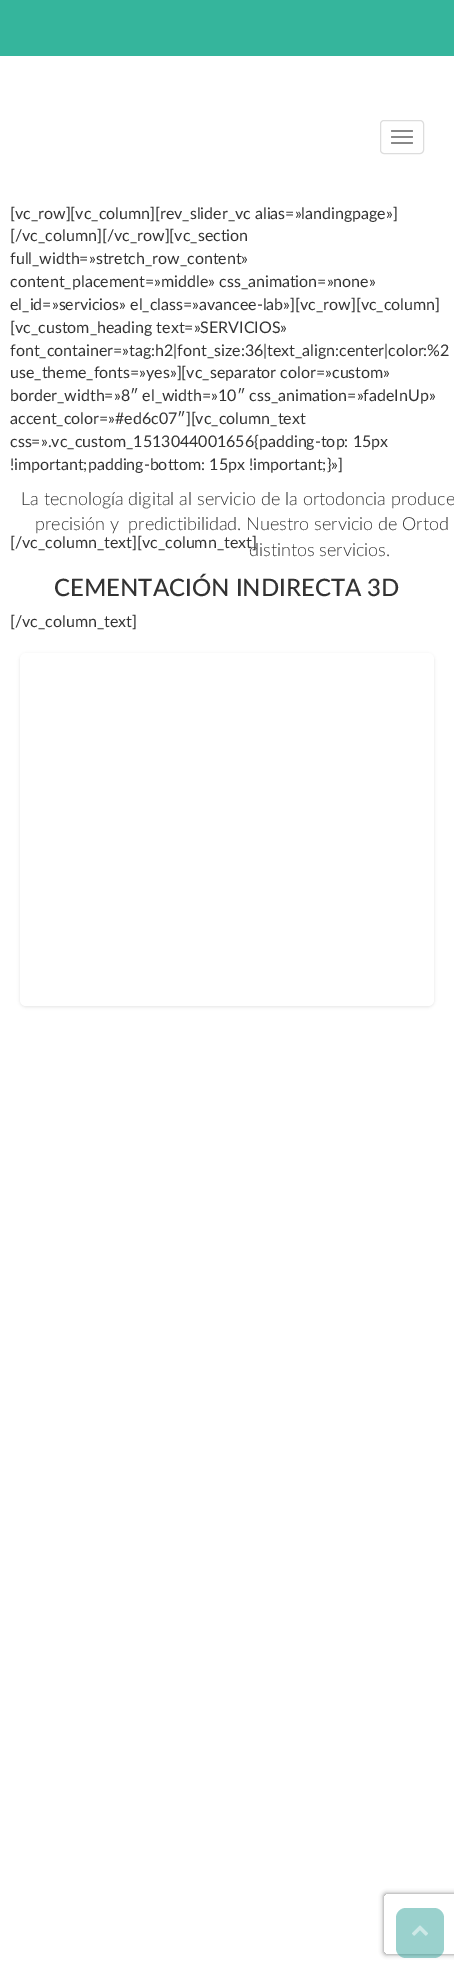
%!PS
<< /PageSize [454 1968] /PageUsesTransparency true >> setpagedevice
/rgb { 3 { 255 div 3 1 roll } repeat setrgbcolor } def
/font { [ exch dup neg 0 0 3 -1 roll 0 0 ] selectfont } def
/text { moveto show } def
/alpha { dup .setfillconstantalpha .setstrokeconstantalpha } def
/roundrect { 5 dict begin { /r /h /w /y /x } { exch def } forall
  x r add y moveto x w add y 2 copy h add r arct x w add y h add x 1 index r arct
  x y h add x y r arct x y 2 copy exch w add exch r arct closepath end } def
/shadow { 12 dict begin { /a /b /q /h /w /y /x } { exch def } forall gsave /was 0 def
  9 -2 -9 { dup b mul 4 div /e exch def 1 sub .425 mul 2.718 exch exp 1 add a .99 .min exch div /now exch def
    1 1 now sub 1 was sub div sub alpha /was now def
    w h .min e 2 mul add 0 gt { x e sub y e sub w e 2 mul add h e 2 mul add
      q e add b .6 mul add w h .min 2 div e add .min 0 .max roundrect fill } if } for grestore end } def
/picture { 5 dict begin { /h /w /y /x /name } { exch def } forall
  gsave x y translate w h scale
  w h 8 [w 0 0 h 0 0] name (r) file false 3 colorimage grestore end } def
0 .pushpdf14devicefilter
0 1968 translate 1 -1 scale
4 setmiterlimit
255 255 255 rgb
0 0 454 1968 rectfill
53 181 156 rgb
0 0 454 56 rectfill
221 221 221 rgb
380.5 120.5 43 33 3.5 roundrect stroke
136 136 136 rgb
391 130 22 2 1 roundrect fill
391 136 22 2 1 roundrect fill
391 142 22 2 1 roundrect fill
0 0 0 rgb
20 654 414 353 6 1.5 0.1 shadow
255 255 255 rgb
20 653 414 353 6 roundrect fill
gsave
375 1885 moveto 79 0 rlineto 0 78 rlineto -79 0 rlineto closepath 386 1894 moveto 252 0 rlineto 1 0 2 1 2 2 rcurveto 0 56 rlineto 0 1 -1 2 -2 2 rcurveto -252 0 rlineto -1 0 -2 -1 -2 -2 rcurveto 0 -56 rlineto 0 -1 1 -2 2 -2 rcurveto closepath eoclip newpath
128 128 128 rgb
384 1894 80 60 2 2.5 1 shadow
grestore
0.5 alpha
53 164 156 rgb
396 1908 48 50 10 roundrect fill
1 alpha
(img_01.rgb) 412 1925 16 11 picture
/Lato-Regular 16 font
51 51 51 rgb
([vc_row][vc_column][rev_slider_vc alias=»landingpage»]) 10 219 text
([/vc_column][/vc_row][vc_section) 10 241 text
(full_width=»stretch_row_content») 10 264 text
(content_placement=»middle» css_animation=»none») 10 287 text
(el_id=»servicios» el_class=»avancee-lab»][vc_row][vc_column]) 10 310 text
([vc_custom_heading text=»SERVICIOS») 10 333 text
(font_container=»tag:h2|font_size:36|text_align:center|color:%2) 10 356 text
(use_theme_fonts=»yes»][vc_separator color=»custom») 10 378 text
(border_width=»8″ el_width=»10″ css_animation=»fadeInUp») 10 401 text
(accent_color=»#ed6c07″][vc_column_text) 10 424 text
(css=».vc_custom_1513044001656{padding-top: 15px) 10 447 text
(!important;padding-bottom: 15px !important;}»]) 10 470 text
/Lato-Light 18 font
(La tecnología digital al servicio de la ortodoncia produce) 21 505 text
(precisión y  predictibilidad. Nuestro servicio de Ortod) 35 530 text
(distintos servicios.) 249 556 text
/Lato-Regular 16 font
([/vc_column_text][vc_column_text]) 10 548 text
/Lato-Medium 24 font
(CEMENTACIÓN INDIRECTA 3D) 54 596 text
/Lato-Regular 16 font
([/vc_column_text]) 10 627 text
.poppdf14devicefilter showpage
